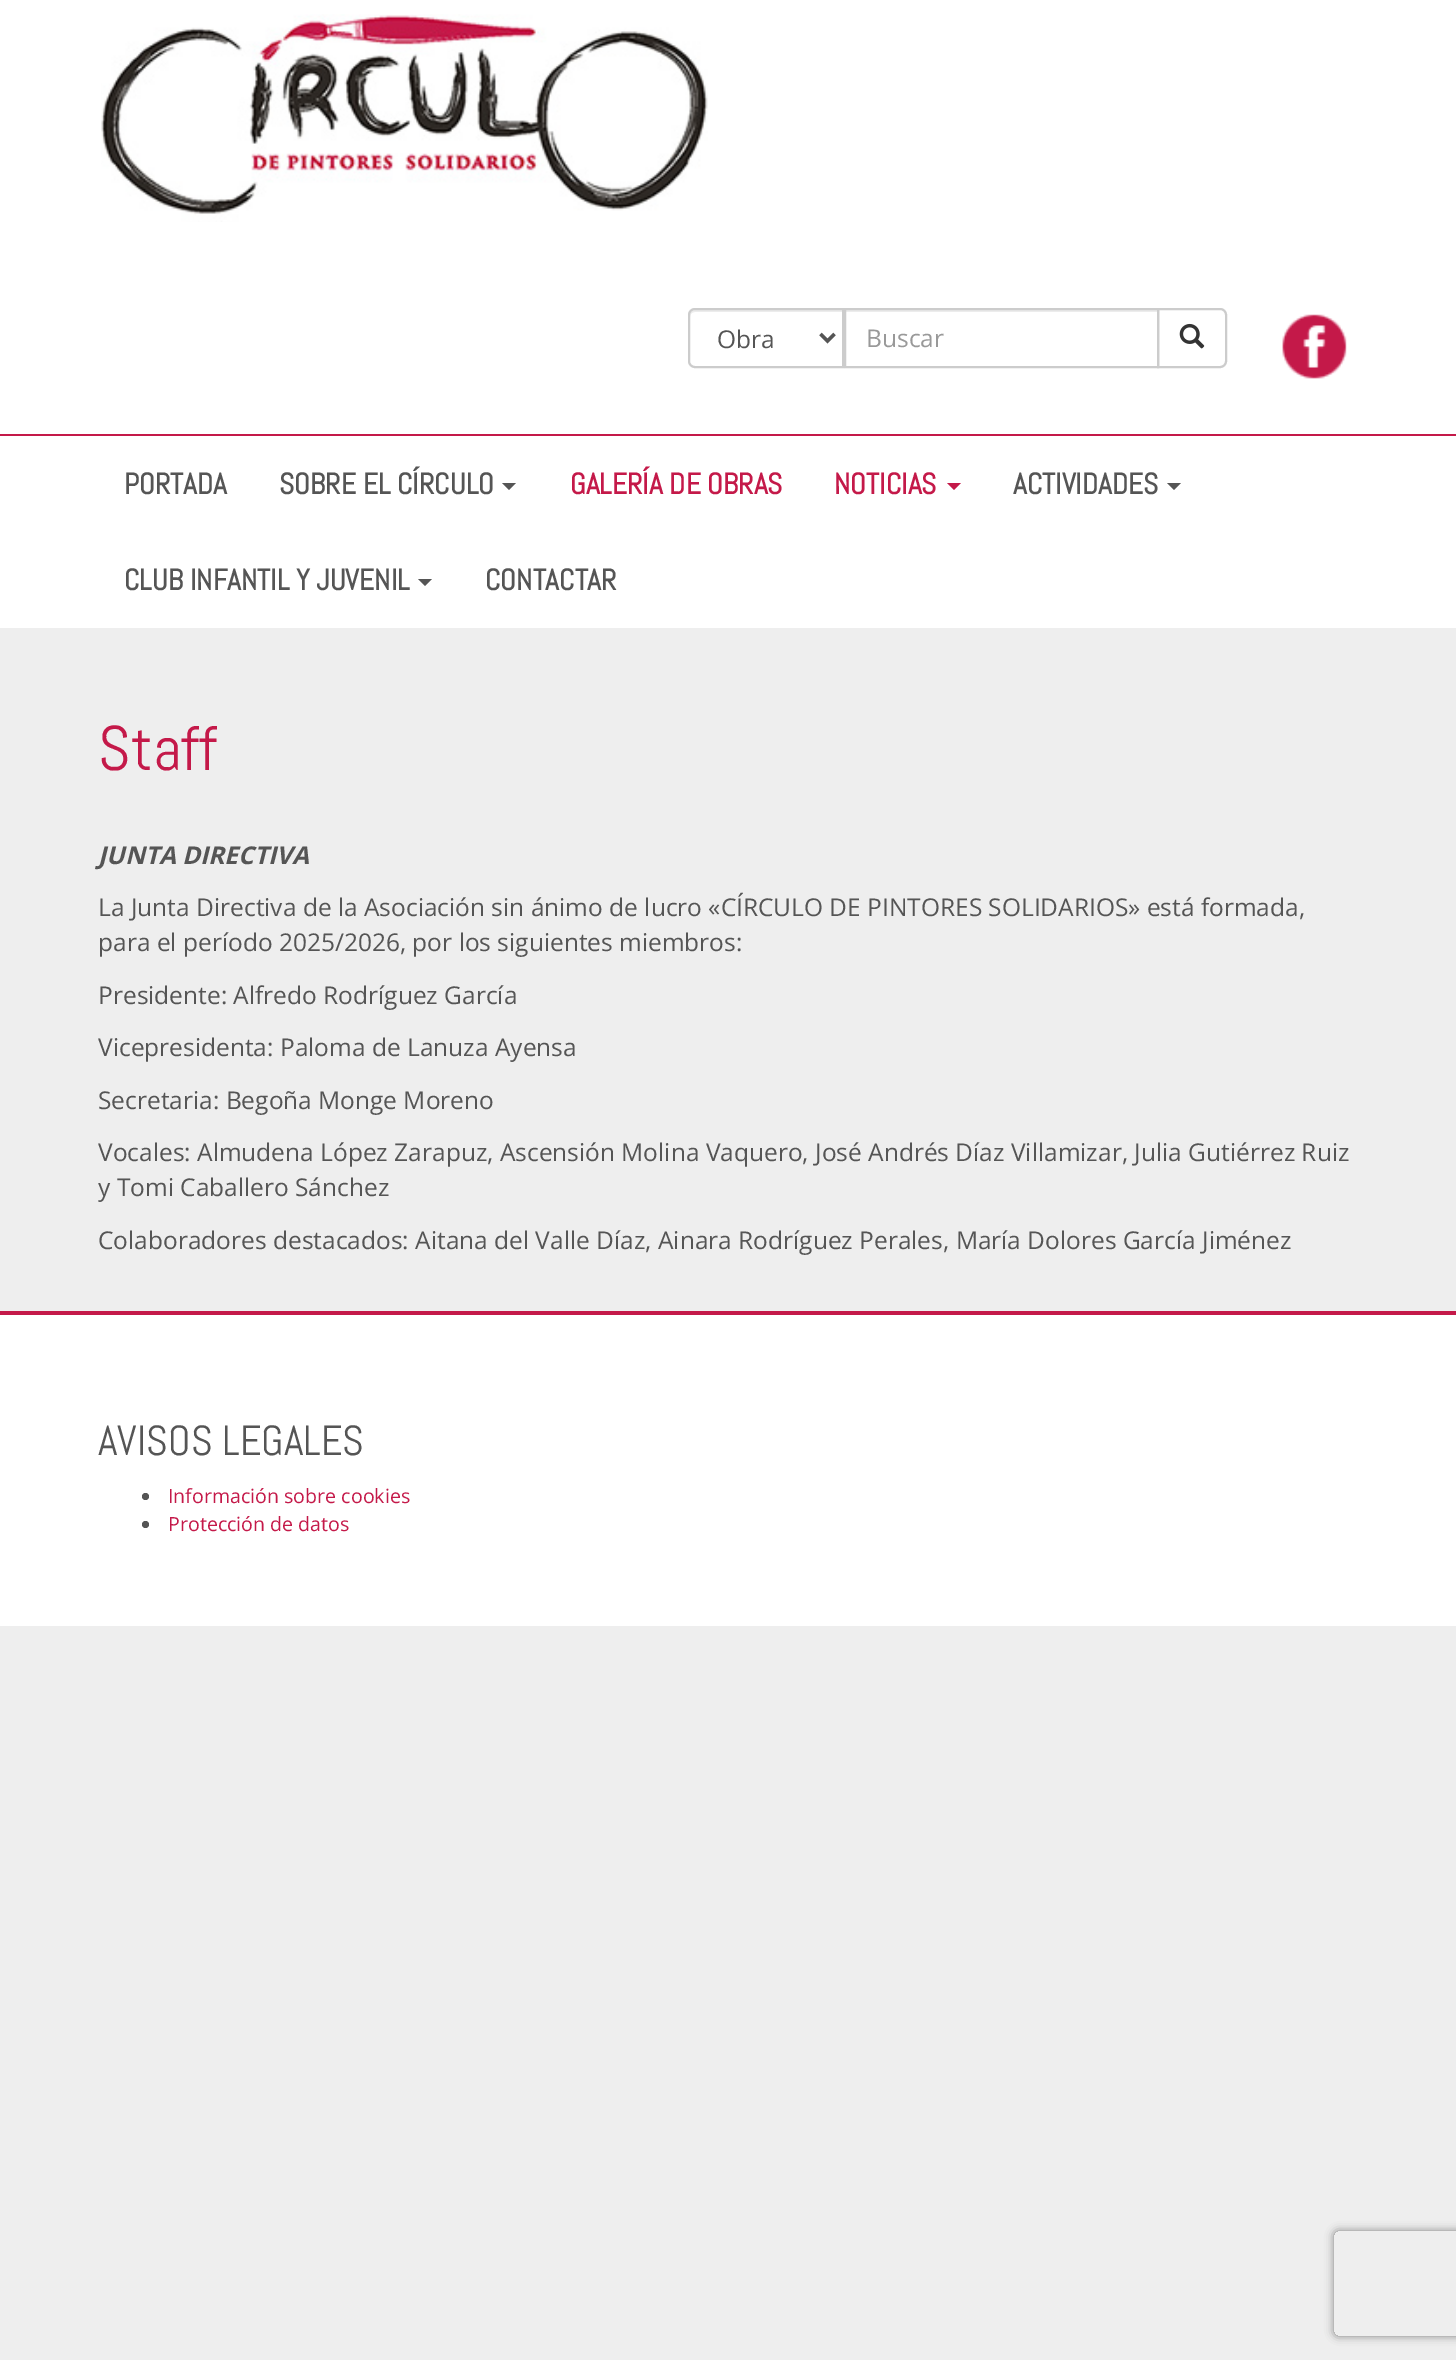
%!PS
<< /PageSize [1456 2360] /PageUsesTransparency true >> setpagedevice
/rgb { 3 { 255 div 3 1 roll } repeat setrgbcolor } def
/font { [ exch dup neg 0 0 3 -1 roll 0 0 ] selectfont } def
/text { moveto show } def
/alpha { dup .setfillconstantalpha .setstrokeconstantalpha } def
/circle { newpath 0 360 arc closepath } def
/roundrect { 5 dict begin { /r /h /w /y /x } { exch def } forall
  x r add y moveto x w add y 2 copy h add r arct x w add y h add x 1 index r arct
  x y h add x y r arct x y 2 copy exch w add exch r arct closepath end } def
/shadow { 12 dict begin { /a /b /q /h /w /y /x } { exch def } forall gsave /was 0 def
  9 -2 -9 { dup b mul 4 div /e exch def 1 sub .425 mul 2.718 exch exp 1 add a .99 .min exch div /now exch def
    1 1 now sub 1 was sub div sub alpha /was now def
    w h .min e 2 mul add 0 gt { x e sub y e sub w e 2 mul add h e 2 mul add
      q e add b .6 mul add w h .min 2 div e add .min 0 .max roundrect fill } if } for grestore end } def
/picture { 5 dict begin { /h /w /y /x /name } { exch def } forall
  gsave x y translate w h scale
  w h 8 [w 0 0 h 0 0] name (r) file false 3 colorimage grestore end } def
0 .pushpdf14devicefilter
0 2360 translate 1 -1 scale
4 setmiterlimit
238 238 238 rgb
0 0 1456 2360 rectfill
255 255 255 rgb
0 0 1456 628 rectfill
196 25 73 rgb
0 434 1456 2 rectfill
(img_01.rgb) 101 14 607 208 picture
236 236 236 rgb
695 312 moveto 147 0 rlineto 0 -2 rlineto -147 0 rlineto -3 0 -5 2 -5 5 rcurveto 0 2 rlineto 0 -3 2 -5 5 -5 rcurveto closepath fill
204 204 204 rgb
2 setlinewidth
695 309 moveto 148 0 rlineto 0 58 rlineto -148 0 rlineto -3.5 0 -6 -2.5 -6 -6 rcurveto 0 -46 rlineto 0 -3.5 2.5 -6 6 -6 rcurveto closepath stroke
85 85 85 rgb
3.5 setlinewidth
820.5 334 moveto 7 7 rlineto 7 -7 rlineto stroke
236 236 236 rgb
845 310 312 2 rectfill
204 204 204 rgb
2 setlinewidth
1158 309 moveto 62 0 rlineto 3.5 0 6 2.5 6 6 rcurveto 0 46 rlineto 0 3.5 -2.5 6 -6 6 rcurveto -62 0 rlineto closepath stroke
845 309 313 58 rectstroke
(img_02.rgb) 1179 323 26 26 picture
(img_03.rgb) 1282 314 65 65 picture
85 85 85 rgb
502 483 moveto 14 0 rlineto -7 7 rlineto closepath fill
196 25 73 rgb
947 483 moveto 14 0 rlineto -7 7 rlineto closepath fill
85 85 85 rgb
1167 483 moveto 14 0 rlineto -7 7 rlineto closepath fill
418 579 moveto 14 0 rlineto -7 7 rlineto closepath fill
255 255 255 rgb
0 1315 1456 311 rectfill
196 25 73 rgb
0 1311 1456 4 rectfill
85 85 85 rgb
145.5 1496.5 3.5 circle fill
145.5 1524.5 3.5 circle fill
gsave
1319 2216 moveto 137 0 rlineto 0 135 rlineto -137 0 rlineto closepath 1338 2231 moveto 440 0 rlineto 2 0 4 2 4 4 rcurveto 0 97 rlineto 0 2 -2 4 -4 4 rcurveto -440 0 rlineto -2 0 -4 -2 -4 -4 rcurveto 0 -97 rlineto 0 -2 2 -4 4 -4 rcurveto closepath eoclip newpath
128 128 128 rgb
1334 2231 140 105 4 4.5 1 shadow
grestore
/OpenSans-Regular 24.5 font
(Obra) 717 348 text
153 153 153 rgb
(Buscar) 866 347 text
/Abel-Bold 29.5 font
85 85 85 rgb
(PORTADA) 124 494 text
(SOBRE EL CÍRCULO) 279 494 text
196 25 73 rgb
(GALERÍA DE OBRAS) 570 494 text
(NOTICIAS) 834 494 text
85 85 85 rgb
(ACTIVIDADES) 1013 494 text
(CLUB INFANTIL Y JUVENIL) 124 590 text
(CONTACTAR) 485 590 text
/Abel-Regular 63 font
196 25 73 rgb
(Staff) 98 770 text
/OpenSans-BoldItalic 24.5 font
85 85 85 rgb
(JUNTA DIRECTIVA) 98 864 text
/OpenSans-Regular 24.5 font
(La Junta Directiva de la Asociación sin ánimo de lucro «CÍRCULO DE PINTORES SOLIDARIOS» está formada,) 98 916 text
(para el período 2025/2026, por los siguientes miembros:) 98 951 text
(Presidente: Alfredo Rodríguez García) 98 1004 text
(Vicepresidenta: Paloma de Lanuza Ayensa) 98 1056 text
(Secretaria: Begoña Monge Moreno) 98 1109 text
(Vocales: Almudena López Zarapuz, Ascensión Molina Vaquero, José Andrés Díaz Villamizar, Julia Gutiérrez Ruiz) 98 1161 text
(y Tomi Caballero Sánchez) 98 1196 text
(Colaboradores destacados: Aitana del Valle Díaz, Ainara Rodríguez Perales, María Dolores García Jiménez) 98 1249 text
/Abel-Regular 42 font
(AVISOS LEGALES) 98 1455 text
/OpenSans-Regular 19.6 font
196 25 73 rgb
(Información sobre cookies) 168 1503 text
(Protección de datos) 168 1531 text
.poppdf14devicefilter showpage
